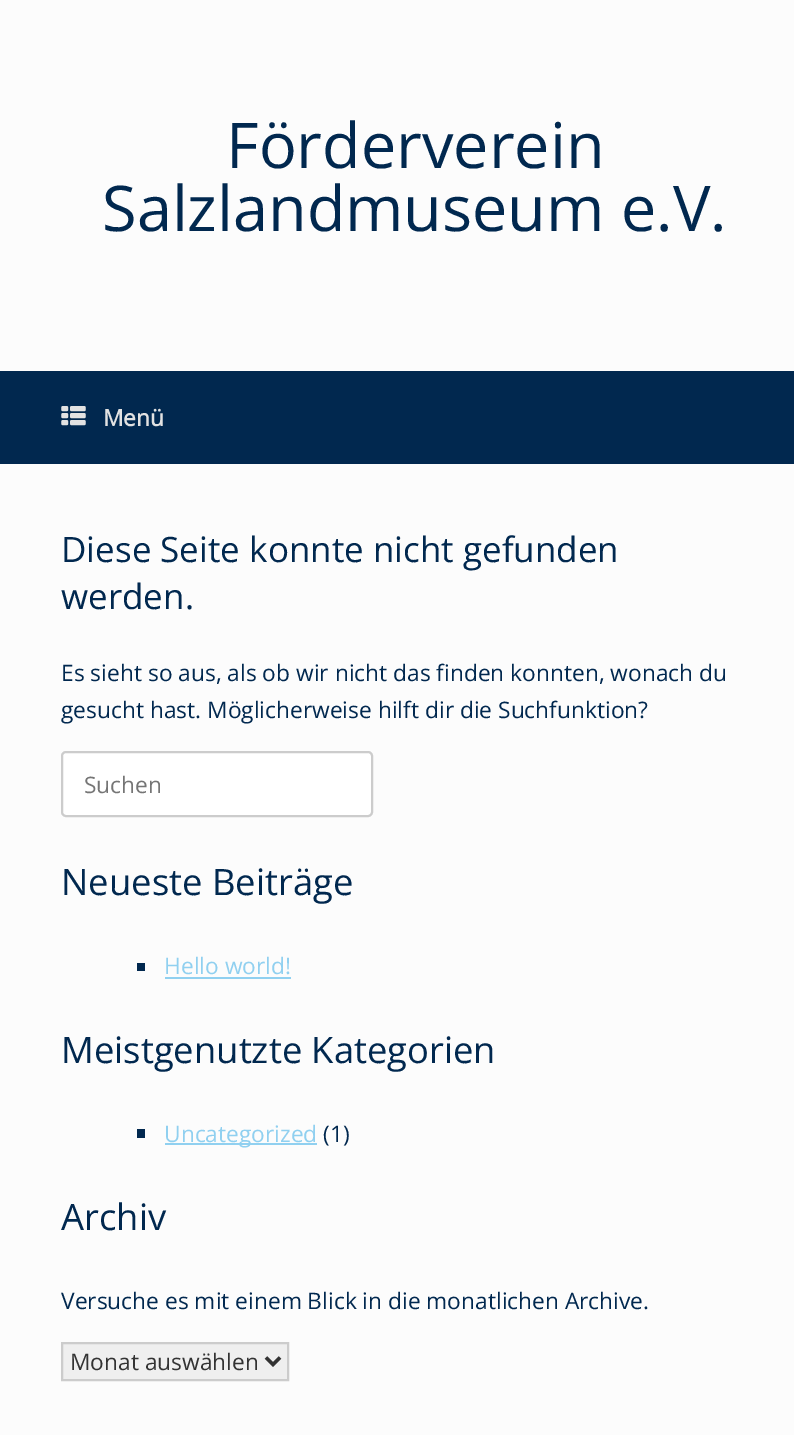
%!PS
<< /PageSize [794 1435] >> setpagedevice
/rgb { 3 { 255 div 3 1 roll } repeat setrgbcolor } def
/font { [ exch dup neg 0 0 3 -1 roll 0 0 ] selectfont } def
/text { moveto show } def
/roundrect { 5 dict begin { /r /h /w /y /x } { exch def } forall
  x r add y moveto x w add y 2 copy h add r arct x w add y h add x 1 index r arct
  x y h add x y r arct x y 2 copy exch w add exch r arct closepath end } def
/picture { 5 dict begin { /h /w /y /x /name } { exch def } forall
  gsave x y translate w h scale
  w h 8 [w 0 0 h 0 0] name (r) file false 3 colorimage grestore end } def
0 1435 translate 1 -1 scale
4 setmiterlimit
252 252 252 rgb
0 0 794 1435 rectfill
1 40 79 rgb
0 371 794 93 rectfill
(img_01.rgb) 61 406 25 20 picture
255 255 255 rgb
62 752 310 64 4 roundrect gsave fill grestore
204 204 204 rgb
2 setlinewidth
stroke
1 40 79 rgb
137 963 8 8 rectfill
144 208 240 rgb
165 977 126 2 rectfill
1 40 79 rgb
137 1129 8 9 rectfill
144 208 240 rgb
165 1143 152 2 rectfill
239 239 239 rgb
62 1343 moveto 226 0 rlineto 0 37 rlineto -226 0 rlineto closepath gsave fill grestore
204 204 204 rgb
stroke
51 51 51 rgb
3.5 setlinewidth
266 1357.5 moveto 7 7 rlineto 7 -7 rlineto stroke
/OpenSans-Regular 63 font
1 40 79 rgb
(Förderverein) 226 168 text
(Salzlandmuseum e.V.) 102 231 text
/OpenSans-Bold 22.75 font
226 226 226 rgb
(Menü) 103 426 text
/OpenSans-Regular 35 font
1 40 79 rgb
(Diese Seite konnte nicht gefunden) 61 562 text
(werden.) 61 609 text
/OpenSans-Regular 22.75 font
(Es sieht so aus, als ob wir nicht das finden konnten, wonach du) 61 681 text
(gesucht hast. Möglicherweise hilft dir die Suchfunktion?) 61 718 text
117 117 117 rgb
(Suchen) 84 793 text
/OpenSans-Regular 36.4 font
1 40 79 rgb
(Neueste Beiträge) 61 895 text
/OpenSans-Regular 22.75 font
144 208 240 rgb
(Hello world!) 164 974 text
/OpenSans-Regular 36.4 font
1 40 79 rgb
(Meistgenutzte Kategorien) 61 1063 text
/OpenSans-Regular 22.75 font
144 208 240 rgb
(Uncategorized) 164 1142 text
1 40 79 rgb
(\(1\)) 323 1142 text
/OpenSans-Regular 36.4 font
(Archiv) 61 1230 text
/OpenSans-Regular 22.75 font
(Versuche es mit einem Blick in die monatlichen Archive.) 61 1309 text
51 51 51 rgb
(Monat auswählen) 70 1370 text
showpage
